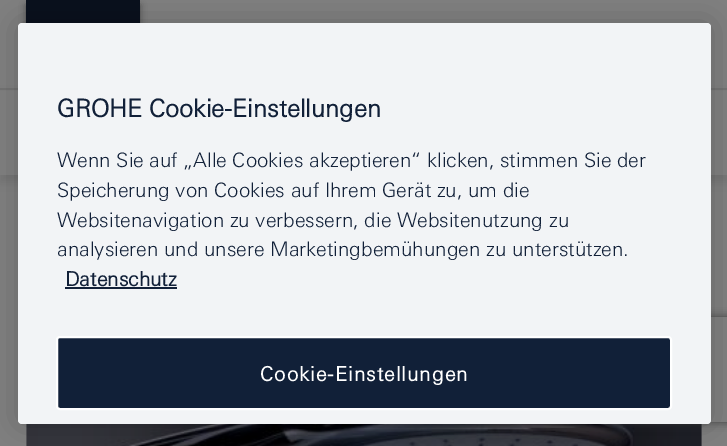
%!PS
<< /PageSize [727 446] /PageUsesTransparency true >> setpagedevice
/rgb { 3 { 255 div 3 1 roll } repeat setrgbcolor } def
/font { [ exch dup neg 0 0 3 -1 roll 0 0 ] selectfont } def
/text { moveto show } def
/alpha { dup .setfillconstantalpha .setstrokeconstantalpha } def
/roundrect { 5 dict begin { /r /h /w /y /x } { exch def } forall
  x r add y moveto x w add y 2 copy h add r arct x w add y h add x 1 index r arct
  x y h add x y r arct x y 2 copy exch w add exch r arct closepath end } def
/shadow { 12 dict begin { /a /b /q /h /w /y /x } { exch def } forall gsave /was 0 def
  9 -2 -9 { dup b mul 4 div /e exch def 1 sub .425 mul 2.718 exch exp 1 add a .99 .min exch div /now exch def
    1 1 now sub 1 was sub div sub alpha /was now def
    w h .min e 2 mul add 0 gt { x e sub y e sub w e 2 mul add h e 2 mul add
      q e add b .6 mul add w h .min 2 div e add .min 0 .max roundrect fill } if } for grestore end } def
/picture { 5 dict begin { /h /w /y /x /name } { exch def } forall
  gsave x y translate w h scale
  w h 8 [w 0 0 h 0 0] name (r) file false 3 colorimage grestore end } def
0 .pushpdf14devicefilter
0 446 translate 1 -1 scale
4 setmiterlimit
128 128 128 rgb
0 0 727 446 rectfill
0 0 0 rgb
0 95 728 87 0 4.5 0.1 shadow
128 128 128 rgb
0 91 727 84 rectfill
115 115 115 rgb
0 88 727 2 rectfill
0 0 0 rgb
26 5 114 88 0 3.5 0.4 shadow
9 16 28 rgb
26 0 114 23 rectfill
(img_01.rgb) 26 424 676 22 picture
0 0 0 rgb
18 23 693 401 4 16 0.2 shadow
gsave
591 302 moveto 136 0 rlineto 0 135 rlineto -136 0 rlineto closepath 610 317 moveto 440 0 rlineto 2 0 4 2 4 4 rcurveto 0 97 rlineto 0 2 -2 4 -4 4 rcurveto -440 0 rlineto -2 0 -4 -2 -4 -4 rcurveto 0 -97 rlineto 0 -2 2 -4 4 -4 rcurveto closepath eoclip newpath
64 64 64 rgb
606 317 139 105 4 4.5 1 shadow
grestore
242 244 246 rgb
18 23 693 401 4 roundrect fill
17 32 56 rgb
65 287 112 2 rectfill
57 337 614 72 3 roundrect gsave fill grestore
255 255 255 rgb
2 setlinewidth
stroke
/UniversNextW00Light-Bold 24.5 font
17 32 56 rgb
(GROHE Cookie-Einstellungen) 57 117 text
/UniversNextW00Light-Light 19.9 font
(Wenn Sie auf „Alle Cookies akzeptieren“ klicken, stimmen Sie der) 57 167 text
(Speicherung von Cookies auf Ihrem Gerät zu, um die) 57 197 text
(Websitenavigation zu verbessern, die Websitenutzung zu) 57 227 text
(analysieren und unsere Marketingbemühungen zu unterstützen.) 57 256 text
/UniversNextW00Light-Bold 19.9 font
(Datenschutz) 65 286 text
255 255 255 rgb
260 381 moveto 1 0 (Cookie-Einstellungen) ashow
.poppdf14devicefilter showpage
